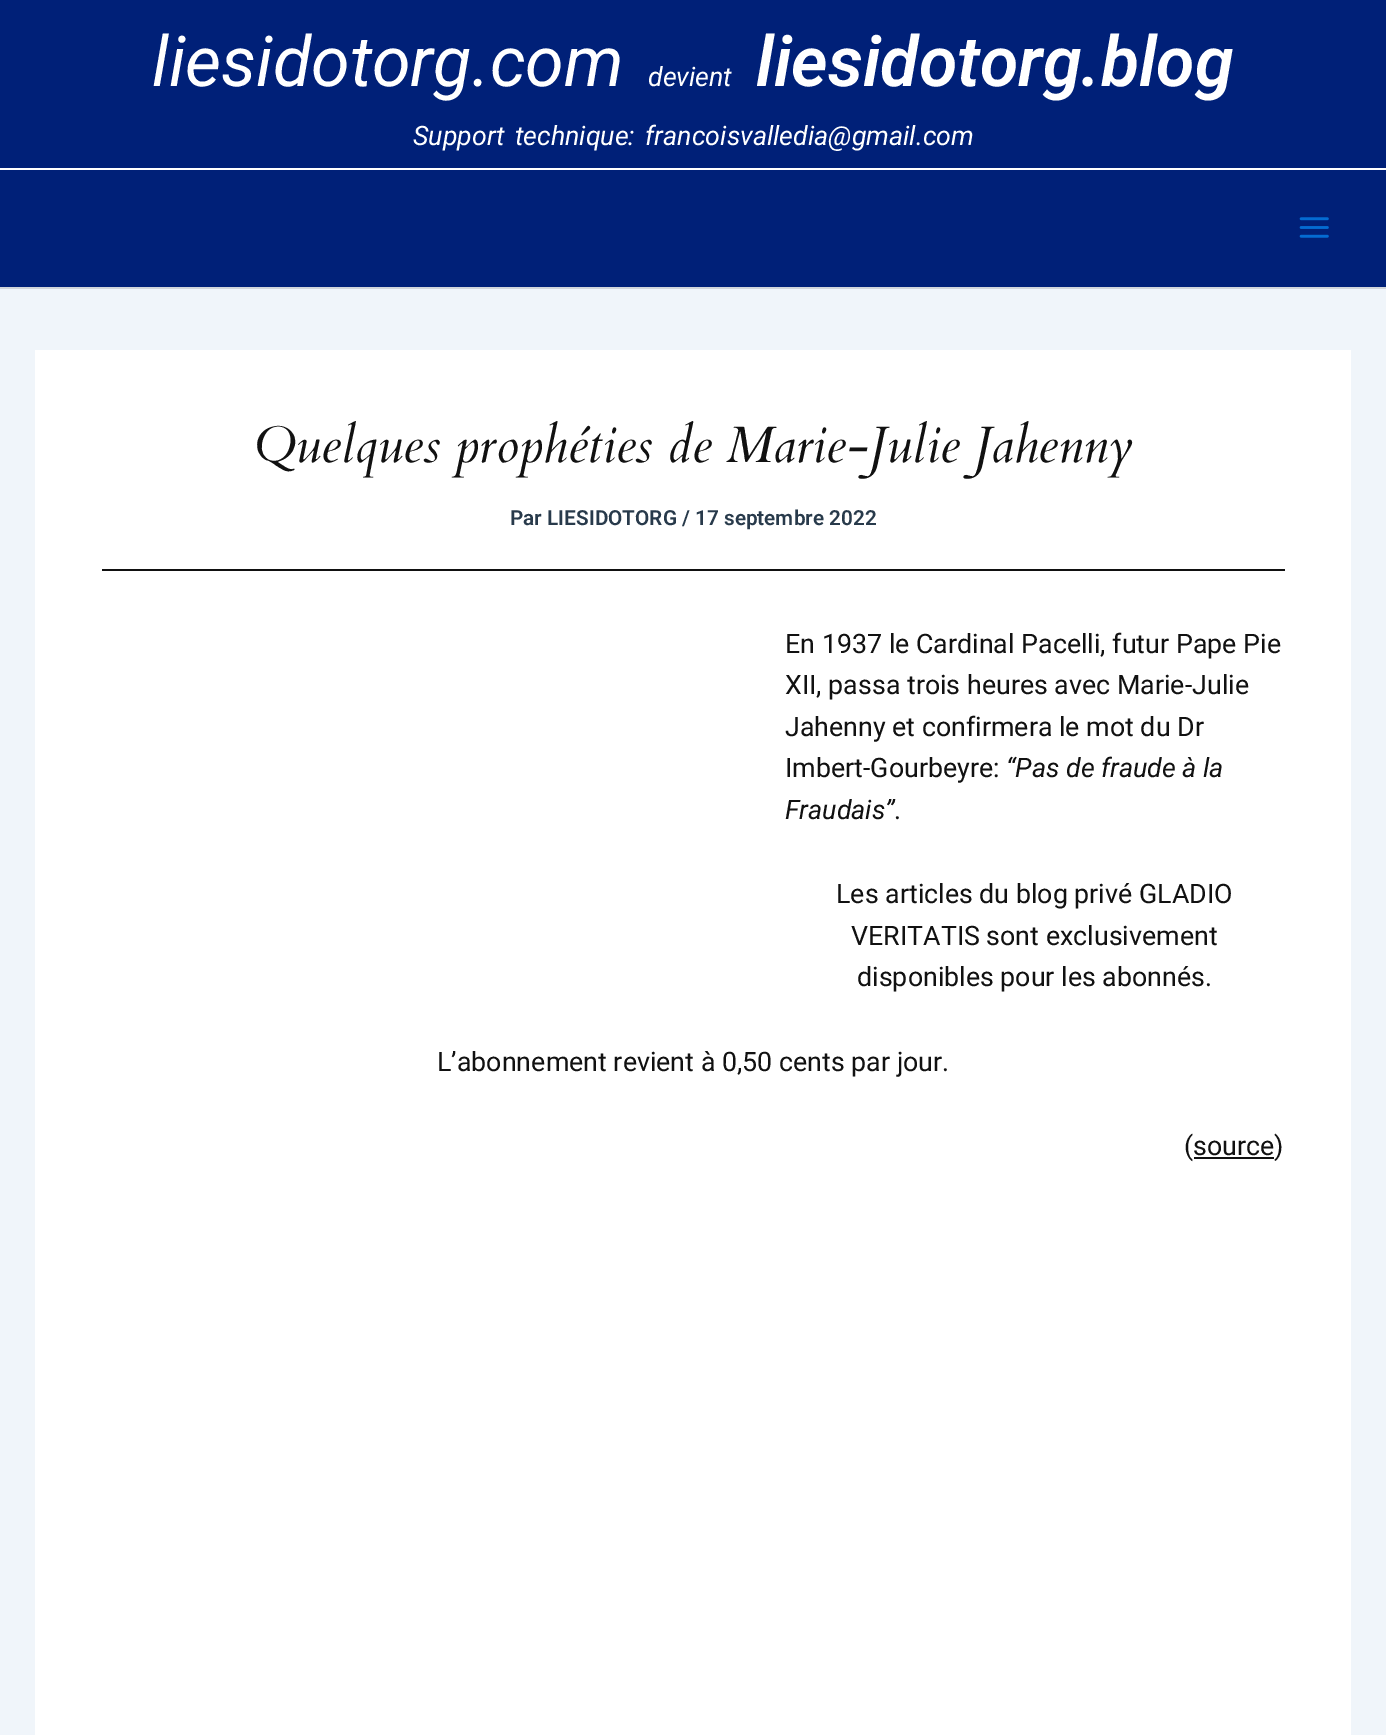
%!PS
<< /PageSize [1386 1735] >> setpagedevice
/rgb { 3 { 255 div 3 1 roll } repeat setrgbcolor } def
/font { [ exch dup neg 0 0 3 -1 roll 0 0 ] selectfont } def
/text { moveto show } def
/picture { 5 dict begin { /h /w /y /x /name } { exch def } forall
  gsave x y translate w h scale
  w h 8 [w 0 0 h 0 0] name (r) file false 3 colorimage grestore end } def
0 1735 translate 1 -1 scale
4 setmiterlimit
240 245 250 rgb
0 0 1386 1735 rectfill
0 32 120 rgb
0 0 1386 168 rectfill
255 255 255 rgb
0 168 1386 2 rectfill
0 32 120 rgb
0 170 1386 117 rectfill
209 213 219 rgb
0 287 1386 2 rectfill
(img_01.rgb) 1299 217 30 21 picture
255 255 255 rgb
35 350 1316 1385 rectfill
17 17 17 rgb
102 569 1183 2 rectfill
1194 1157 80 2 rectfill
/Roboto-Italic 70 font
255 255 255 rgb
(liesidotorg.com) 152 86 text
/Roboto-Italic 26.8 font
(devient) 648 86 text
/Roboto-SemiBoldItalic 70 font
(liesidotorg.blog) 756 86 text
/Roboto-Italic 26.8 font
413 145 moveto 4 0 32 (Support technique: francoisvalledia@gmail.com) widthshow
/Cardo-Italic 51.1 font
17 17 17 rgb
(Quelques prophéties de Marie-Julie Jahenny) 254 462 text
/Roboto-SemiBold 20.75 font
40 58 75 rgb
(Par LIESIDOTORG / 17 septembre 2022) 510 525 text
/Roboto-Regular 26.8 font
17 17 17 rgb
(En 1937 le Cardinal Pacelli, futur Pape Pie) 785 653 text
(XII, passa trois heures avec Marie-Julie) 785 694 text
(Jahenny et confirmera le mot du Dr) 785 736 text
(Imbert-Gourbeyre:) 785 777 text
/Roboto-Italic 26.8 font
(“Pas de fraude à la) 1006 777 text
(Fraudais”) 785 819 text
/Roboto-Regular 26.8 font
(.) 894 819 text
(Les articles du blog privé GLADIO) 836 903 text
(VERITATIS sont exclusivement) 851 945 text
(disponibles pour les abonnés.) 857 986 text
(L’abonnement revient à 0,50 cents par jour.) 437 1071 text
(\(source\)) 1184 1155 text
showpage
